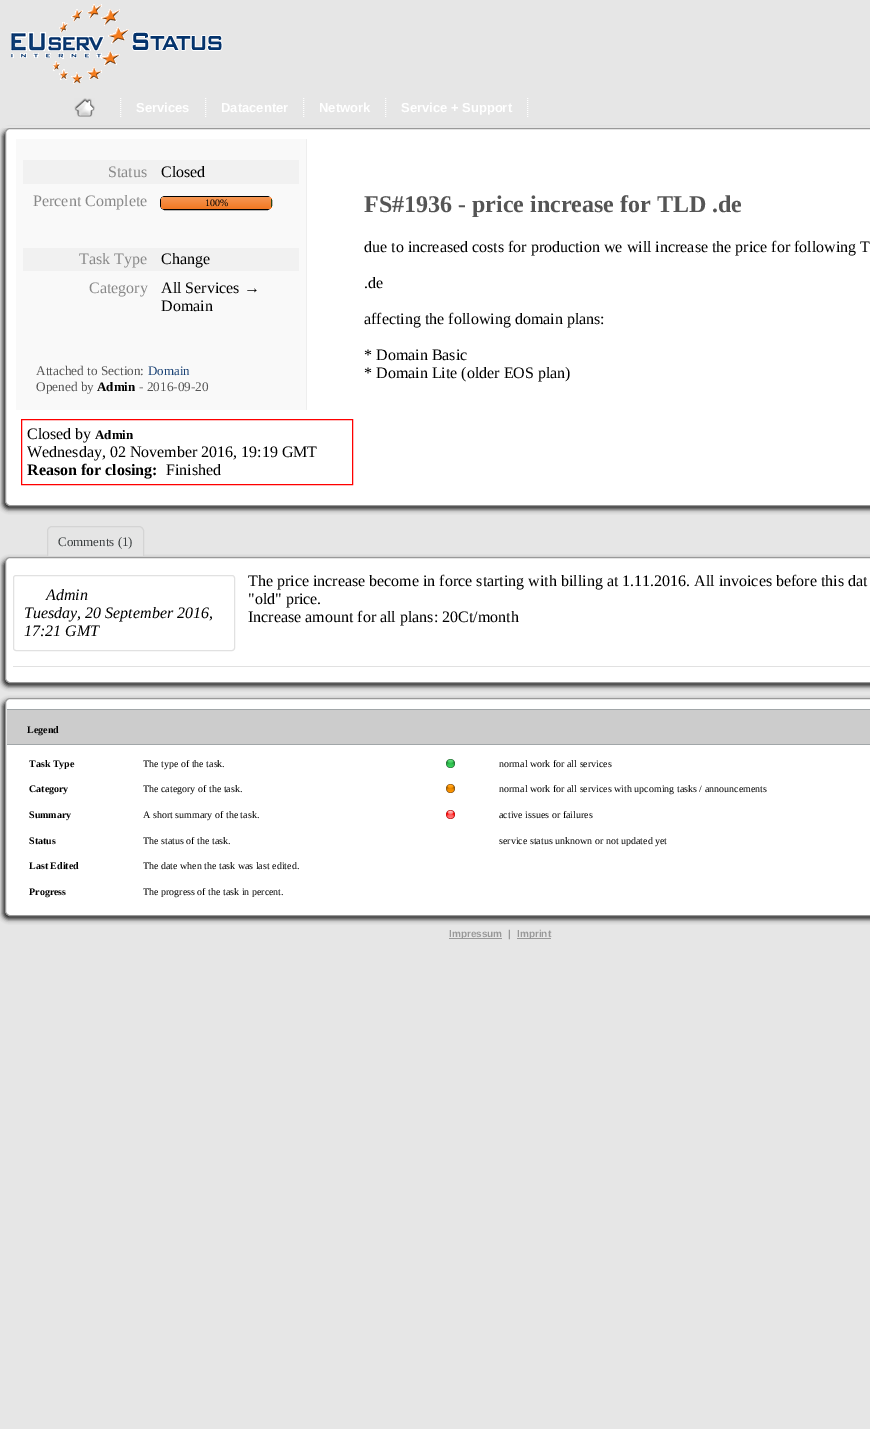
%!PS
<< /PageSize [870 1429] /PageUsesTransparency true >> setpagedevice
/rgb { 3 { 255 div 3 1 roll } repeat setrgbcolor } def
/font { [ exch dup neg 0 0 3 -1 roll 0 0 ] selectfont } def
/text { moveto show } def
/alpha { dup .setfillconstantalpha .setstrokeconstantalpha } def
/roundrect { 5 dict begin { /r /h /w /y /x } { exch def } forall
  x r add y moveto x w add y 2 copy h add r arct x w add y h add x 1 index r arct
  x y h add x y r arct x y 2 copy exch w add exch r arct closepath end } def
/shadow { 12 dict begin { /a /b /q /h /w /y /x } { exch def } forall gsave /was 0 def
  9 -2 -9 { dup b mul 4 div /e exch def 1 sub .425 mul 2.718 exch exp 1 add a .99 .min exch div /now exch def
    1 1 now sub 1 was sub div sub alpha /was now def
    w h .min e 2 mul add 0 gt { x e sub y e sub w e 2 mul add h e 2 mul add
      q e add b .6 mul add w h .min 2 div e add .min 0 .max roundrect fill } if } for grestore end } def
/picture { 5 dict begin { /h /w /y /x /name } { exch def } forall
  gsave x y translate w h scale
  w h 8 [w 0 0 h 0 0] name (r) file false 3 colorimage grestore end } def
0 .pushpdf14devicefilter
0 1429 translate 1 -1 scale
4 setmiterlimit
230 230 230 rgb
0 0 870 1429 rectfill
(img_01.rgb) 11 4 212 80 picture
29 29 29 rgb
3 131 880 378 5 2.5 1 shadow
229 229 229 rgb
3 126 867 2 rectfill
255 255 255 rgb
[1 1] 0 setdash
120.5 98 moveto 0 20 rlineto stroke
(img_02.rgb) 74 98 21 19 picture
205.5 98 moveto 0 20 rlineto stroke
303.5 98 moveto 0 20 rlineto stroke
385.5 98 moveto 0 20 rlineto stroke
527.5 98 moveto 0 20 rlineto stroke
5.5 128.5 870 377 4.5 roundrect gsave fill grestore
153 153 153 rgb
[] 0 setdash
stroke
249 249 249 rgb
16 139 290 271 rectfill
238 238 238 rgb
306 139 1 271 rectfill
241 241 241 rgb
23 160 276 24 rectfill
0 0 0 rgb
160.5 196.5 111 13 4.5 roundrect stroke
gsave 161 197 111 12 4 roundrect clip newpath
<< /ShadingType 2 /ColorSpace /DeviceRGB /Coords [216 197 216 209] /Extend [true true] /Function << /FunctionType 2 /Domain [0 1] /C0 [0.965 0.592 0.329] /C1 [0.949 0.471 0.133] /N 1 >> >> shfill grestore
45 71 19 rgb
271 199 1 8 rectfill
241 241 241 rgb
23 248 276 23 rectfill
255 0 0 rgb
21.5 419.5 331 65 rectstroke
29 29 29 rgb
3 560 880 126 5 2.5 1 shadow
229 229 229 rgb
52 526.5 moveto 87 0 rlineto 2.5 0 4.5 2 4.5 4.5 rcurveto 0 25.5 rlineto -96 0 rlineto 0 -25.5 rlineto 0 -2.5 2 -4.5 4.5 -4.5 rcurveto closepath gsave fill grestore
212 212 212 rgb
stroke
255 255 255 rgb
5.5 557.5 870 125 4.5 roundrect gsave fill grestore
153 153 153 rgb
stroke
225 225 225 rgb
13 666 857 1 rectfill
13.5 575.5 221 75 2.5 roundrect stroke
29 29 29 rgb
3 701 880 218 5 2.5 1 shadow
255 255 255 rgb
5.5 698.5 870 217 4.5 roundrect gsave fill grestore
153 153 153 rgb
stroke
204 204 204 rgb
7 710 863 34 rectfill
161 166 168 rgb
7 709 863 1 rectfill
7 744 863 1 rectfill
(img_03.rgb) 446 759 9 9 picture
(img_04.rgb) 446 784 9 9 picture
(img_05.rgb) 446 810 9 9 picture
153 153 153 rgb
449 938 53 1 rectfill
517 938 34 1 rectfill
/LiberationSans-Bold 13 font
255 255 255 rgb
(Services) 136 112 text
(Datacenter) 221 112 text
(Network) 319 112 text
(Service + Support) 401 112 text
/LiberationSerif-Regular 16 font
136 136 136 rgb
(Status) 108 177 text
0 0 0 rgb
(Closed) 161 177 text
136 136 136 rgb
(Percent Complete) 33 206 text
/LiberationSerif-Regular 10 font
0 0 0 rgb
(100%) 205 206 text
/LiberationSerif-Regular 16 font
136 136 136 rgb
(Task Type) 79 264 text
0 0 0 rgb
(Change) 161 264 text
136 136 136 rgb
(Category) 89 293 text
0 0 0 rgb
(All Services →) 161 293 text
(Domain) 161 311 text
/LiberationSerif-Regular 13.25 font
85 85 85 rgb
(Attached to Section:) 36 375 text
/LiberationSerif-Regular 13 font
25 65 116 rgb
(Domain) 148 375 text
/LiberationSerif-Regular 13.25 font
85 85 85 rgb
(Opened by) 36 391 text
/LiberationSerif-Bold 13 font
0 0 0 rgb
(Admin) 97 391 text
/LiberationSerif-Regular 13.25 font
85 85 85 rgb
(- 2016-09-20) 139 391 text
/LiberationSerif-Bold 24 font
(FS#1936 - price increase for TLD .de) 364 212 text
/LiberationSerif-Regular 16 font
0 0 0 rgb
(due to increased costs for production we will increase the price for following T) 364 252 text
(.de) 364 288 text
(affecting the following domain plans:) 364 324 text
(* Domain Basic) 364 360 text
(* Domain Lite \(older EOS plan\)) 364 378 text
(Closed by) 27 439 text
/LiberationSerif-Bold 13 font
(Admin) 95 439 text
/LiberationSerif-Regular 16 font
(Wednesday, 02 November 2016, 19:19 GMT) 27 457 text
/LiberationSerif-Bold 16 font
(Reason for closing:) 27 475 text
/LiberationSerif-Regular 16 font
(Finished) 166 475 text
/LiberationSerif-Regular 13 font
60 64 65 rgb
(Comments \(1\)) 58 546 text
/LiberationSerif-Italic 16 font
0 0 0 rgb
(Admin) 46 600 text
(Tuesday, 20 September 2016,) 24 618 text
(17:21 GMT) 24 636 text
/LiberationSerif-Regular 16 font
(The price increase become in force starting with billing at 1.11.2016. All invoices before this dat) 248 586 text
("old" price.) 248 604 text
(Increase amount for all plans: 20Ct/month) 248 622 text
/LiberationSerif-Bold 10 font
(Legend) 27 733 text
(Task Type) 29 767 text
/LiberationSerif-Regular 10 font
(The type of the task.) 143 767 text
(normal work for all services) 499 767 text
/LiberationSerif-Bold 10 font
(Category) 29 792 text
/LiberationSerif-Regular 10 font
(The category of the task.) 143 792 text
(normal work for all services with upcoming tasks / announcements) 499 792 text
/LiberationSerif-Bold 10 font
(Summary) 29 818 text
/LiberationSerif-Regular 10 font
(A short summary of the task.) 143 818 text
(active issues or failures) 499 818 text
/LiberationSerif-Bold 10 font
(Status) 29 844 text
/LiberationSerif-Regular 10 font
(The status of the task.) 143 844 text
(service status unknown or not updated yet) 499 844 text
/LiberationSerif-Bold 10 font
(Last Edited) 29 869 text
/LiberationSerif-Regular 10 font
(The date when the task was last edited.) 143 869 text
/LiberationSerif-Bold 10 font
(Progress) 29 895 text
/LiberationSerif-Regular 10 font
(The progress of the task in percent.) 143 895 text
/LiberationSans-Bold 10 font
153 153 153 rgb
(Impressum) 449 937 text
(|) 508 937 text
(Imprint) 517 937 text
.poppdf14devicefilter showpage
